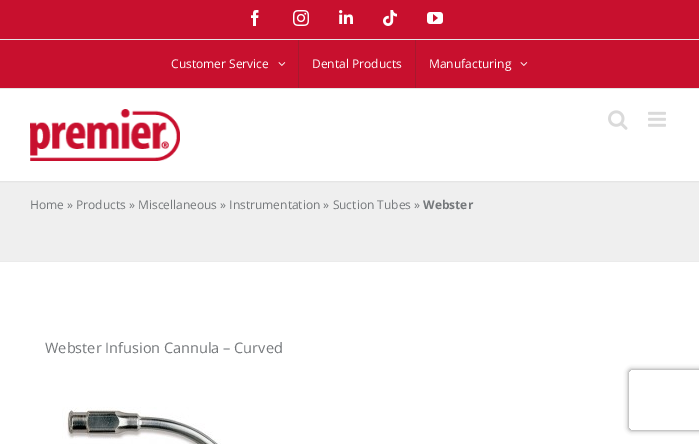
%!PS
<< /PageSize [699 444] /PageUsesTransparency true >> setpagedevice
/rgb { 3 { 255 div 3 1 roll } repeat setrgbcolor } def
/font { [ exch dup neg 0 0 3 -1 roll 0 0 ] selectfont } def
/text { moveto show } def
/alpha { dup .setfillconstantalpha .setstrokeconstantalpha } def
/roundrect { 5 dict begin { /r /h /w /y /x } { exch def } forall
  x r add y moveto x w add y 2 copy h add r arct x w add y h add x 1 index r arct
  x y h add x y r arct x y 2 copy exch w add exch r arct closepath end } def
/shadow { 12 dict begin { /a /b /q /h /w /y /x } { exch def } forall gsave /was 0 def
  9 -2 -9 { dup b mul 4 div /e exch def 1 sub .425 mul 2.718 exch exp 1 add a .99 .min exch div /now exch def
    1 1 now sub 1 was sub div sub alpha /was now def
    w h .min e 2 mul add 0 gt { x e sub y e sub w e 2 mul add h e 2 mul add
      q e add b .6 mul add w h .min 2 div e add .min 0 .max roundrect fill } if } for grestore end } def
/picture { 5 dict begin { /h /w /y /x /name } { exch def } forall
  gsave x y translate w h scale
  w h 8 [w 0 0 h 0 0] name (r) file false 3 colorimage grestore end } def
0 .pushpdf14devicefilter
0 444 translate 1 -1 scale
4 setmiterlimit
255 255 255 rgb
0 0 699 444 rectfill
200 16 46 rgb
0 0 699 88 rectfill
229 229 229 rgb
0 88 699 1 rectfill
0 39 699 1 rectfill
(img_01.rgb) 251 10 8 16 picture
(img_02.rgb) 293 10 16 16 picture
(img_03.rgb) 339 10 14 14 picture
(img_04.rgb) 383 10 14 16 picture
(img_05.rgb) 427 12 16 12 picture
(img_06.rgb) 278 62 8 4 picture
166 25 46 rgb
298 40 1 48 rectfill
415 40 1 48 rectfill
(img_06.rgb) 520 62 8 4 picture
229 229 229 rgb
0 181 699 1 rectfill
(img_07.rgb) 30 109 150 52 picture
(img_08.rgb) 608 110 20 20 picture
(img_09.rgb) 648 111 18 16 picture
239 239 239 rgb
0 183 699 78 rectfill
235 235 235 rgb
0 182 699 1 rectfill
0 261 699 1 rectfill
(img_10.rgb) 62 407 159 37 picture
gsave
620 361 moveto 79 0 rlineto 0 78 rlineto -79 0 rlineto closepath 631 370 moveto 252 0 rlineto 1 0 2 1 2 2 rcurveto 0 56 rlineto 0 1 -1 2 -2 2 rcurveto -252 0 rlineto -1 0 -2 -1 -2 -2 rcurveto 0 -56 rlineto 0 -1 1 -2 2 -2 rcurveto closepath eoclip newpath
128 128 128 rgb
629 370 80 60 2 2.5 1 shadow
grestore
/OpenSans-Regular 12 font
255 255 255 rgb
(Customer Service) 171 68 text
(Dental Products) 312 68 text
(Manufacturing) 429 68 text
117 120 123 rgb
(Home » Products » Miscellaneous » Instrumentation » Suction Tubes ») 30 209 text
/OpenSans-Bold 12 font
(Webster) 423 209 text
/OpenSans-Regular 14.5 font
(Webster Infusion Cannula – Curved) 45 353 text
.poppdf14devicefilter showpage
